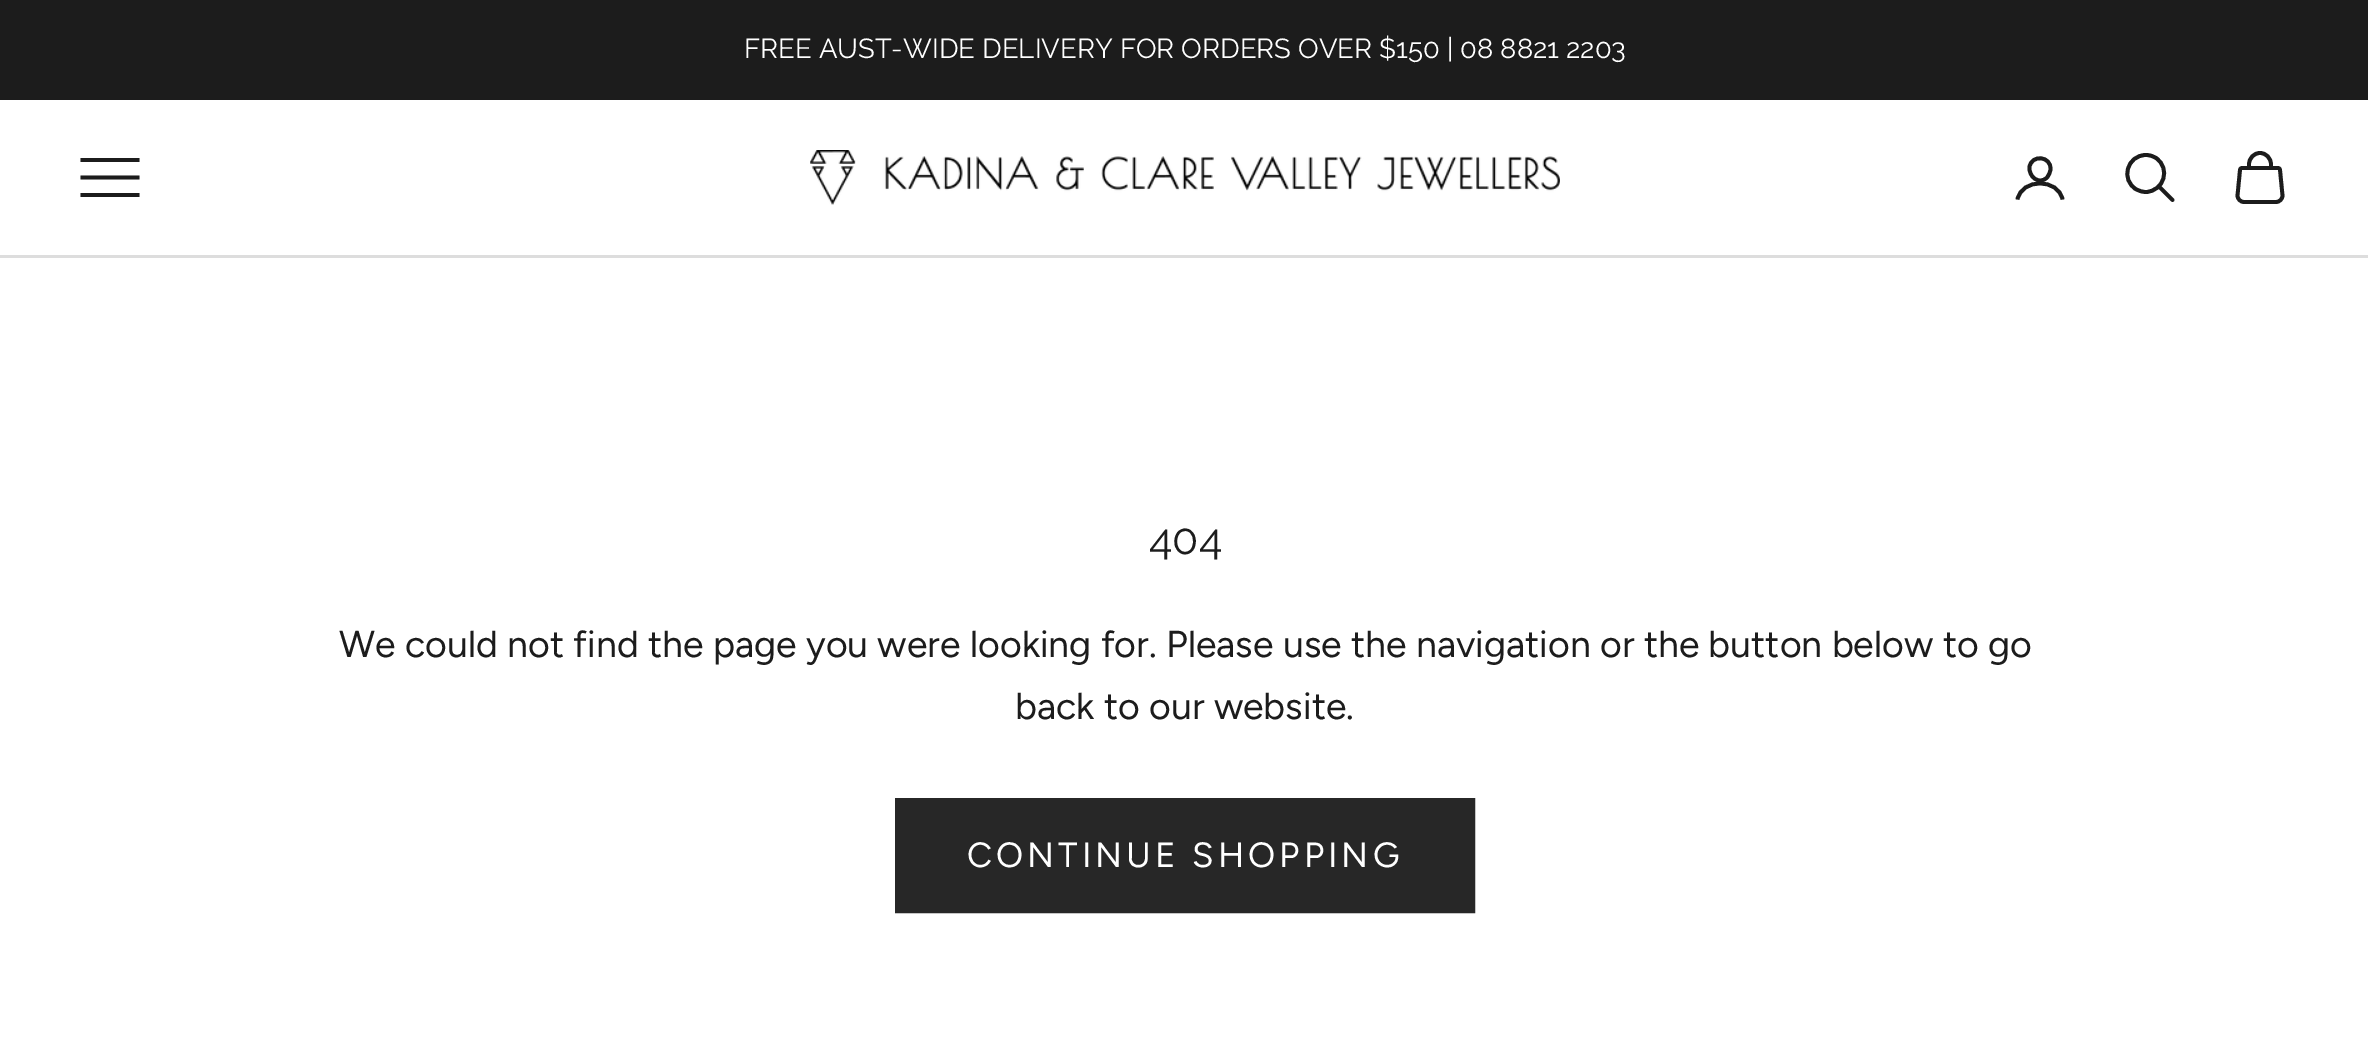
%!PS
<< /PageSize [2368 1056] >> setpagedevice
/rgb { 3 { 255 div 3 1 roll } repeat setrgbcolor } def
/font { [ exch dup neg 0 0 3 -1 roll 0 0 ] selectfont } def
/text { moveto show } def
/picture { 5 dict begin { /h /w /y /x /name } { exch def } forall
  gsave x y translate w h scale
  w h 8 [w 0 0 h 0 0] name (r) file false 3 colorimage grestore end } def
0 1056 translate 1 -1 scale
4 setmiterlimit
255 255 255 rgb
0 0 2368 1056 rectfill
28 28 28 rgb
0 0 2368 100 rectfill
221 221 221 rgb
0 255 2368 3 rectfill
28 28 28 rgb
3.8 setlinewidth
2 setlinecap
82.5 195 moveto 55 0 rlineto 82.5 177.5 moveto 55 0 rlineto 82.5 160 moveto 55 0 rlineto stroke
(img_01.rgb) 810 150 750 55 picture
1 setlinecap
1 setlinejoin
2050.5 169.5 moveto -0.5 3 -1.5 5.5 -3.5 8 rcurveto -8 8 -18.5 -1 -17.5 -10.5 rcurveto 2 -13 22 -11 21 2.5 rcurveto closepath stroke
0 setlinecap
0 setlinejoin
2017.5 199.5 moveto 4 -21.5 41 -21.5 45 0 rcurveto stroke
2146 155 moveto -19 0 -26 25 -9.5 34.5 rcurveto 3 1.5 6 2.5 9.5 2.5 rcurveto 18 -1 25 -23.5 10 -34 rcurveto -3 -2 -6.5 -3 -10 -3 rcurveto closepath stroke
1 setlinecap
2159.5 187 moveto 13 13 rlineto stroke
1 setlinejoin
2242 168 moveto -1 0 -2 1 -2 2 rcurveto -2.5 25.5 rlineto 0 3.5 3 6.5 6.5 6.5 rcurveto 32 0 rlineto 3.5 0 6.5 -3 6.5 -6.5 rcurveto -2.5 -25.5 rlineto 0 -1 -1 -2 -2 -2 rcurveto closepath 2249 168 moveto 0 -3.5 rlineto 0 -6.5 5 -11.5 11 -11.5 rcurveto 6 0 11 5 11 11.5 rcurveto 0 3.5 rlineto stroke
39 39 39 rgb
896.5 799.5 moveto 577 0 rlineto 0 112 rlineto -577 0 rlineto closepath gsave fill grestore
3 setlinewidth
0 setlinecap
0 setlinejoin
stroke
/Raleway-Regular 27.5 font
255 255 255 rgb
(FREE AUST-WIDE DELIVERY FOR ORDERS OVER $150 | 08 8821 2203) 744 58 text
/Raleway-Regular 43 font
28 28 28 rgb
(404) 1149 554 text
/Figtree-Regular 37.5 font
(We could not find the page you were looking for. Please use the navigation or the button below to go) 339 657 text
(back to our website.) 1015 719 text
/Figtree-Regular 35 font
255 255 255 rgb
967 867 moveto 4 0 (CONTINUE SHOPPING) ashow
showpage
